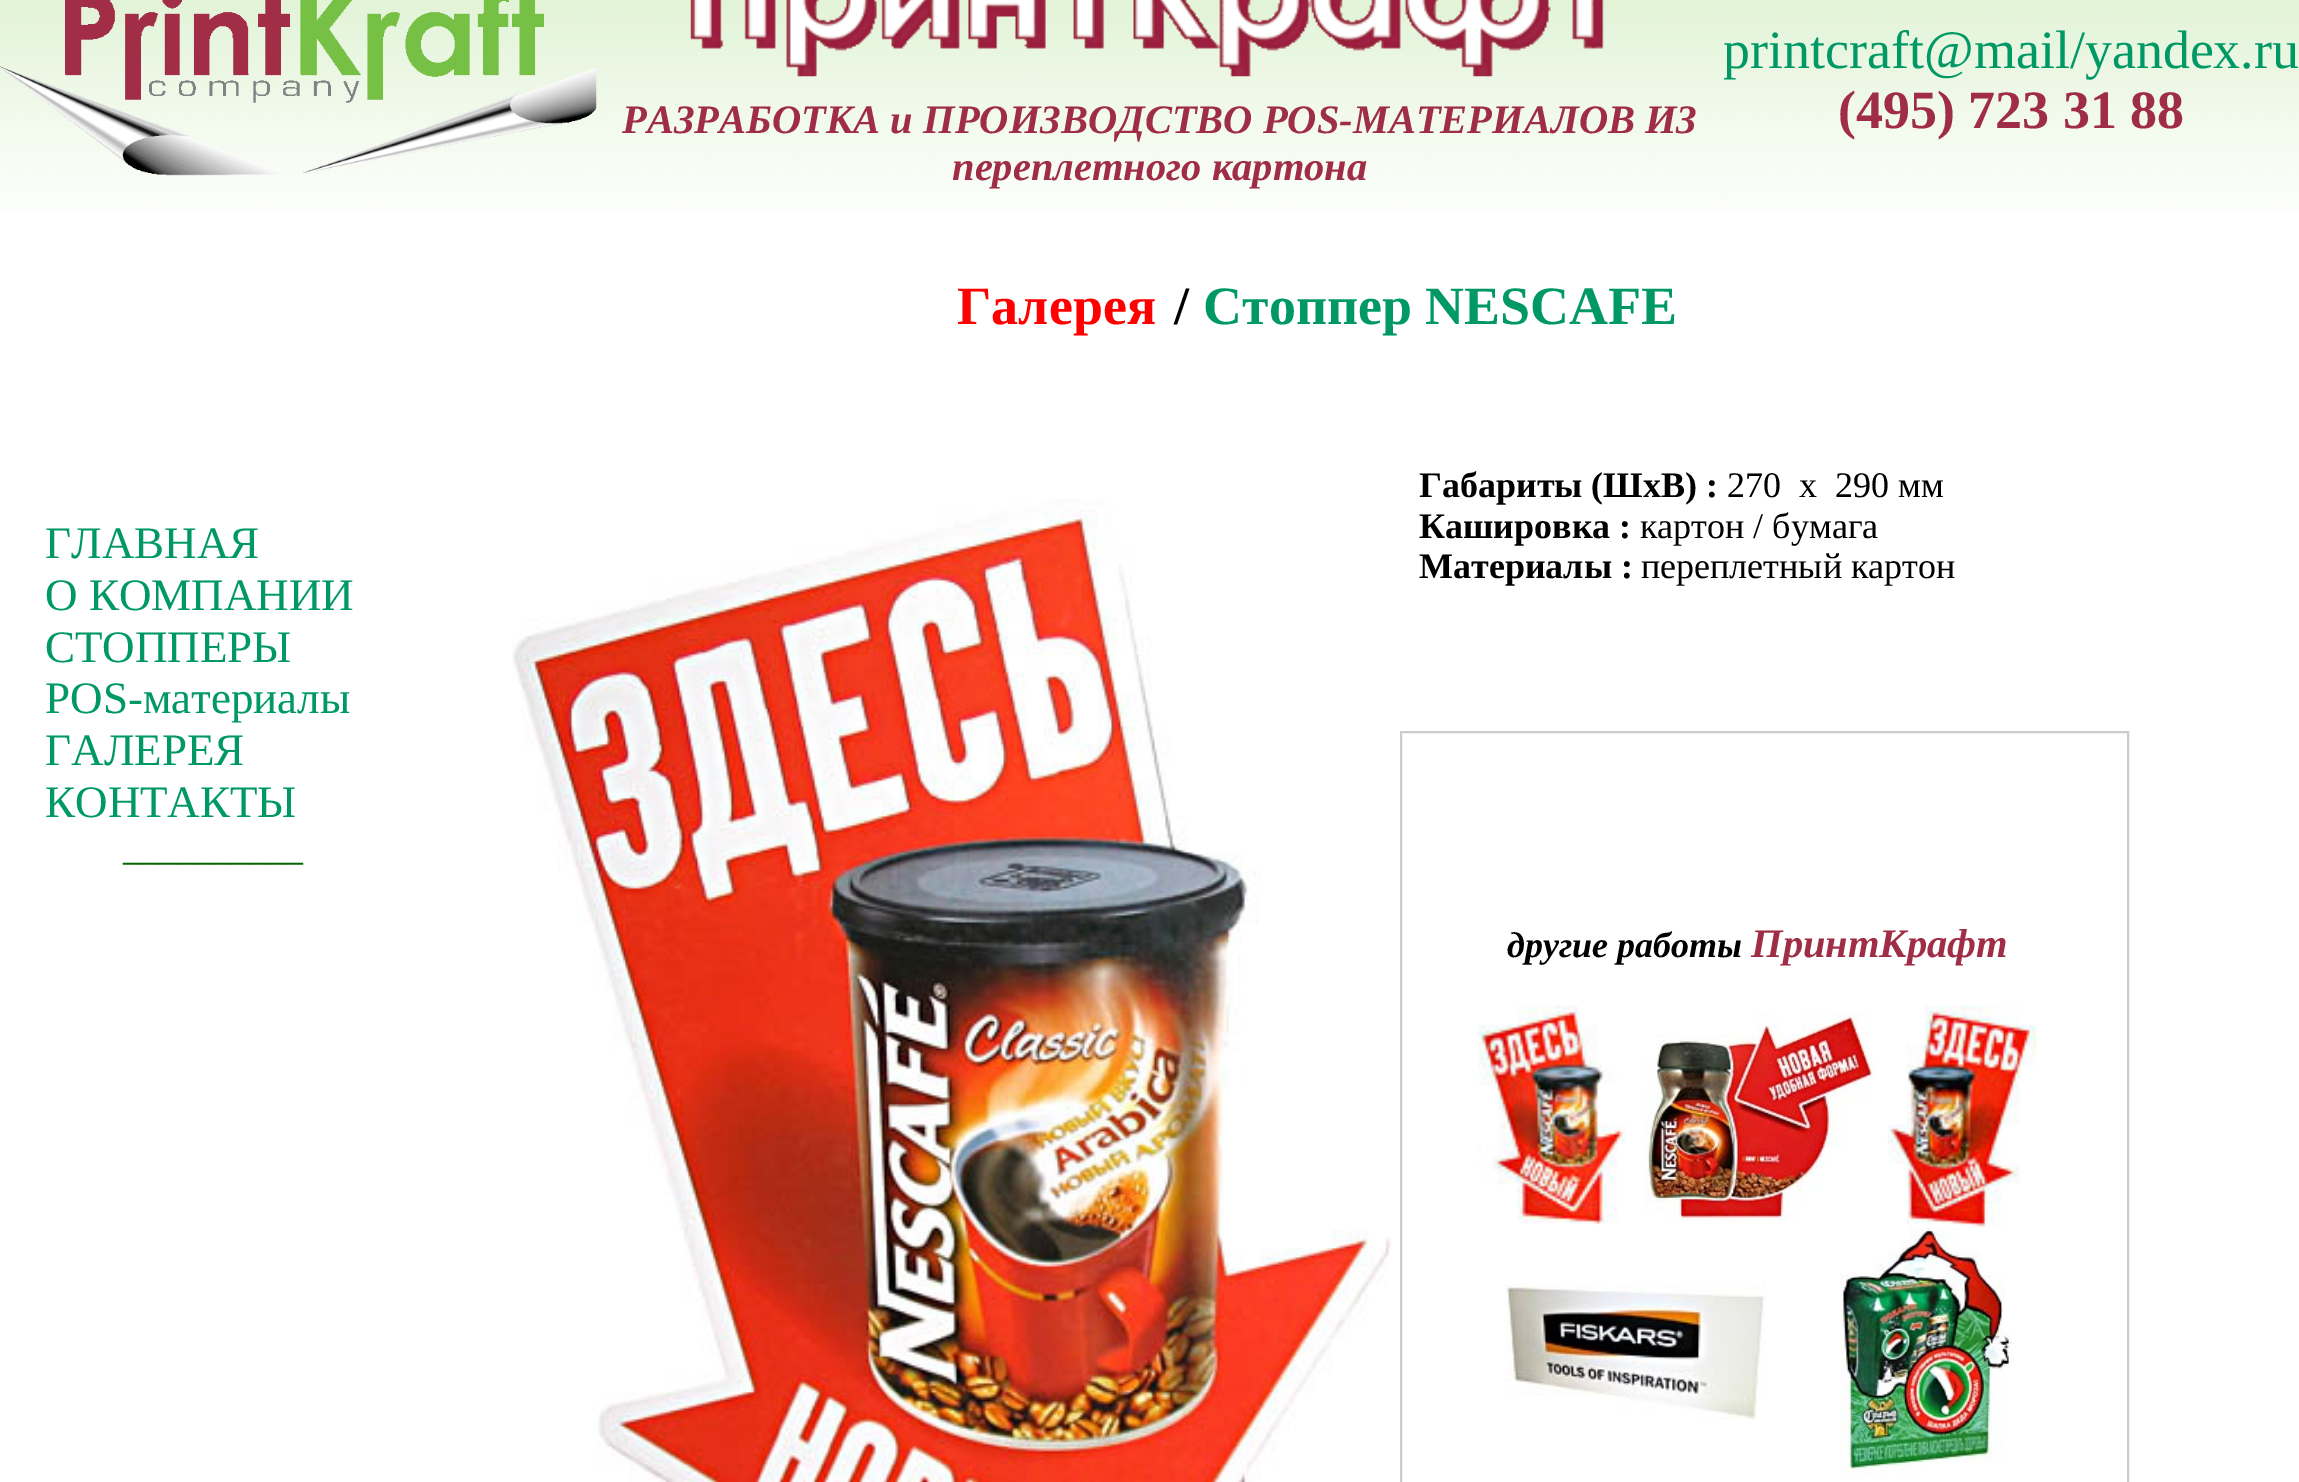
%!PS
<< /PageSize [2299 1482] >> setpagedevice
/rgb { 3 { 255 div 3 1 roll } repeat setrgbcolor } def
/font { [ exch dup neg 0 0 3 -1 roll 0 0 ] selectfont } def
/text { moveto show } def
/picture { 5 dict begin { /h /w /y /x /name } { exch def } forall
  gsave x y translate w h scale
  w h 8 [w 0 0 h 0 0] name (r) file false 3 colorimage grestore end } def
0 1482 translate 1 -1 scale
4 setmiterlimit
255 255 255 rgb
0 0 2299 1482 rectfill
(img_01.rgb) 0 0 597 210 picture
(img_03.rgb) 596 0 1128 210 picture
(img_02.rgb) 0 0 597 176 picture
(img_04.rgb) 690 0 914 77 picture
(img_05.rgb) 1723 0 576 210 picture
(img_06.rgb) 512 499 880 983 picture
204 204 204 rgb
2 setlinewidth
1401 732 727 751 rectstroke
(img_07.rgb) 1478 1005 149 220 picture
(img_08.rgb) 1645 1012 232 210 picture
(img_09.rgb) 1887 1005 150 224 picture
(img_10.rgb) 1505 1284 261 136 picture
(img_11.rgb) 1840 1228 172 247 picture
/LiberationSerif-BoldItalic 40.5 font
160 45 70 rgb
(РАЗРАБОТКА и ПРОИЗВОДСТВО POS-МАТЕРИАЛОВ ИЗ) 622 133 text
(переплетного картона) 952 180 text
/LiberationSerif-Regular 54 font
0 153 102 rgb
(printcraft@mail/yandex.ru) 1723 68 text
/LiberationSerif-Bold 54 font
160 45 70 rgb
(\(495\) 723 31 88) 1838 128 text
255 0 0 rgb
(Галерея) 957 324 text
0 0 0 rgb
(/) 1174 324 text
0 153 102 rgb
(Стоппер NESCAFE) 1203 324 text
/LiberationSerif-Regular 45 font
(ГЛАВНАЯ) 45 558 text
(О КОМПАНИИ) 45 610 text
(СТОППЕРЫ) 45 662 text
(POS-материалы) 45 713 text
(ГАЛЕРЕЯ) 45 765 text
(КОНТАКТЫ) 45 817 text
/LiberationSerif-Regular 36 font
0 102 0 rgb
(__________) 123 860 text
/LiberationSerif-Bold 36 font
0 0 0 rgb
(Габариты \(ШхВ\) :) 1419 497 text
/LiberationSerif-Regular 36 font
(270  x  290 мм) 1727 497 text
/LiberationSerif-Bold 36 font
(Кашировка :) 1419 538 text
/LiberationSerif-Regular 36 font
(картон / бумага) 1640 538 text
/LiberationSerif-Bold 36 font
(Материалы :) 1419 578 text
/LiberationSerif-Regular 36 font
(переплетный картон) 1641 578 text
/LiberationSerif-BoldItalic 36 font
(другие работы) 1507 957 text
/LiberationSerif-BoldItalic 40.5 font
160 45 70 rgb
(ПринтКрафт) 1751 957 text
showpage
